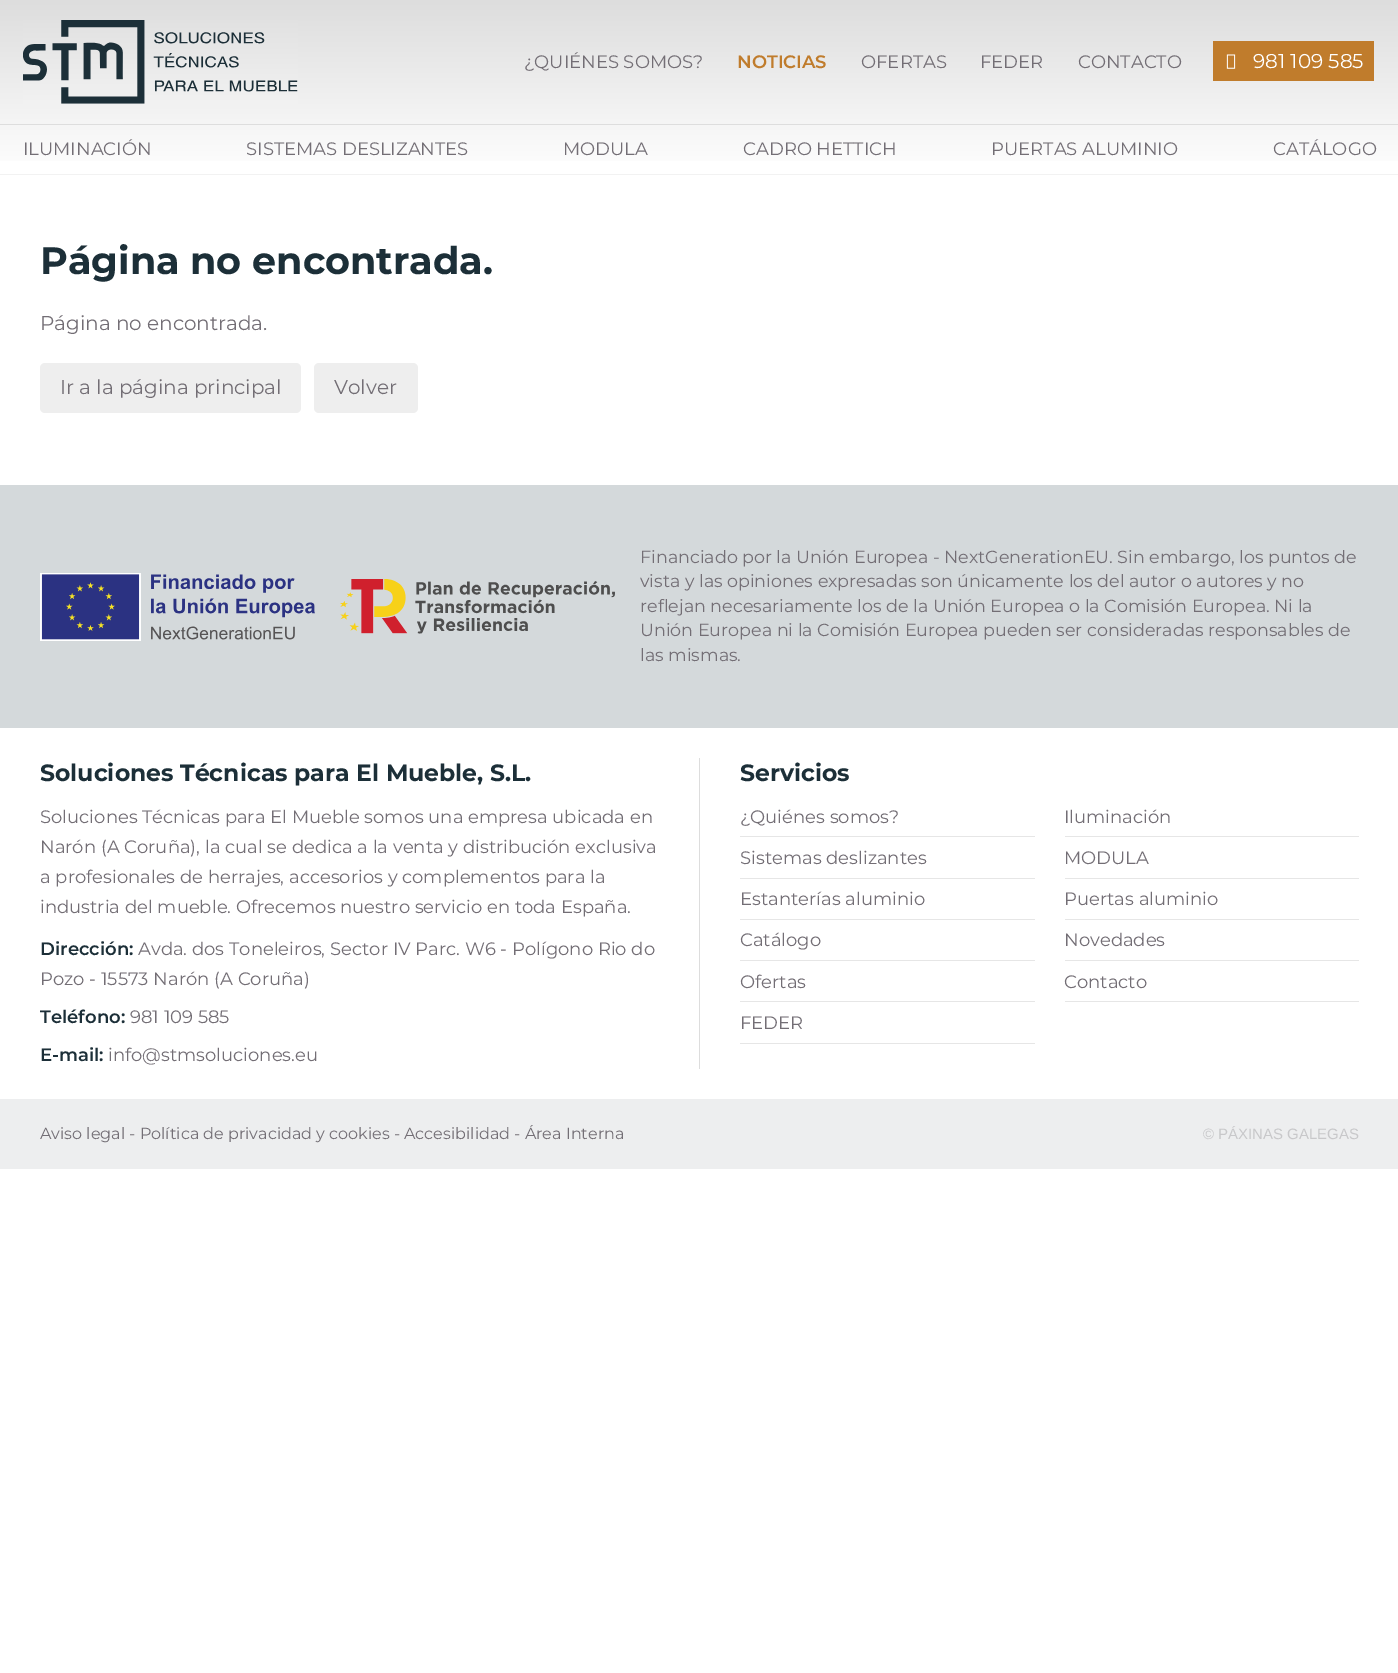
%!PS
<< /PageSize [1398 1673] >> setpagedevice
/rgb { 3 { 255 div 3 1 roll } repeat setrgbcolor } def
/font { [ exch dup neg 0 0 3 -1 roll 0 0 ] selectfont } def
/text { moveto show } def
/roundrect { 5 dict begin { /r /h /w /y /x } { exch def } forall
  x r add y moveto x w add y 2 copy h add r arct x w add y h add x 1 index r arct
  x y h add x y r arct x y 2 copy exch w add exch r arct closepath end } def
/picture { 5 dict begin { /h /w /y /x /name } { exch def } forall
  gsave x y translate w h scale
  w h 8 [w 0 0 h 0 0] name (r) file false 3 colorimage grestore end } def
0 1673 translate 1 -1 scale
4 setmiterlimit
255 255 255 rgb
0 0 1398 1673 rectfill
gsave 0 0 moveto 1398 0 rlineto 0 161 rlineto -1398 0 rlineto closepath clip newpath
<< /ShadingType 2 /ColorSpace /DeviceRGB /Coords [699 0 699 174] /Extend [true true] /Function << /FunctionType 2 /Domain [0 1] /C0 [0.867 0.867 0.867] /C1 [1 1 1] /N 1 >> >> shfill grestore
(img_01.rgb) 23 20 275 84 picture
192 124 44 rgb
1213 41 161 40 rectfill
(img_02.rgb) 1226 54 10 15 picture
221 221 221 rgb
0 124 1398 1 rectfill
242 242 242 rgb
0 174 1398 1 rectfill
238 238 238 rgb
40 363 261 50 5 roundrect fill
314 363 104 50 5 roundrect fill
212 217 219 rgb
0 485 1398 243 rectfill
(img_03.rgb) 40 573 275 68 picture
(img_04.rgb) 340 579 275 55 picture
221 221 221 rgb
699 758 1 311 rectfill
230 230 230 rgb
740 836 295 1 rectfill
1065 836 294 1 rectfill
740 878 295 1 rectfill
1065 878 294 1 rectfill
740 919 295 1 rectfill
1065 919 294 1 rectfill
740 960 295 1 rectfill
1065 960 294 1 rectfill
740 1001 295 1 rectfill
1065 1001 294 1 rectfill
740 1043 295 1 rectfill
237 238 239 rgb
0 1099 1398 70 rectfill
/Montserrat-Regular 18 font
115 110 117 rgb
(¿QUIÉNES SOMOS?) 524 68 text
/Montserrat-SemiBold 18 font
192 124 44 rgb
(NOTICIAS) 737 68 text
/Montserrat-Regular 18 font
115 110 117 rgb
(OFERTAS) 861 68 text
(FEDER) 980 68 text
(CONTACTO) 1078 68 text
/Montserrat-Regular 20 font
255 255 255 rgb
(981 109 585) 1253 68 text
/Montserrat-Regular 18 font
115 110 117 rgb
(ILUMINACIÓN) 23 155 text
(SISTEMAS DESLIZANTES) 246 155 text
(MODULA) 563 155 text
(CADRO HETTICH) 743 155 text
(PUERTAS ALUMINIO) 991 155 text
(CATÁLOGO) 1273 155 text
/Montserrat-Bold 38.1 font
28 47 56 rgb
(Página no encontrada.) 40 274 text
/Montserrat-Regular 20 font
115 110 117 rgb
(Página no encontrada.) 40 330 text
(Ir a la página principal) 60 394 text
(Volver) 334 394 text
/Montserrat-Regular 17.5 font
(Financiado por la Unión Europea - NextGenerationEU. Sin embargo, los puntos de) 640 563 text
(vista y las opiniones expresadas son únicamente los del autor o autores y no) 640 587 text
(reflejan necesariamente los de la Unión Europea o la Comisión Europea. Ni la) 640 612 text
(Unión Europea ni la Comisión Europea pueden ser consideradas responsables de) 640 636 text
(las mismas.) 640 661 text
/Montserrat-Bold 23.5 font
28 47 56 rgb
(Soluciones Técnicas para El Mueble, S.L.) 40 781 text
/Montserrat-Regular 18 font
115 110 117 rgb
(Soluciones Técnicas para El Mueble somos una empresa ubicada en) 40 823 text
(Narón \(A Coruña\), la cual se dedica a la venta y distribución exclusiva) 40 853 text
(a profesionales de herrajes, accesorios y complementos para la) 40 883 text
(industria del mueble. Ofrecemos nuestro servicio en toda España.) 40 913 text
/Montserrat-SemiBold 18 font
28 47 56 rgb
(Dirección:) 40 955 text
/Montserrat-Regular 18 font
115 110 117 rgb
(Avda. dos Toneleiros, Sector IV Parc. W6 - Polígono Rio do) 138 955 text
(Pozo - 15573 Narón \(A Coruña\)) 40 985 text
/Montserrat-SemiBold 18 font
28 47 56 rgb
(Teléfono:) 40 1023 text
/Montserrat-Regular 18 font
115 110 117 rgb
(981 109 585) 130 1023 text
/Montserrat-SemiBold 18 font
28 47 56 rgb
(E-mail:) 40 1061 text
/Montserrat-Regular 18 font
115 110 117 rgb
(info@stmsoluciones.eu) 108 1061 text
/Montserrat-Bold 23.5 font
28 47 56 rgb
(Servicios) 740 781 text
/Montserrat-Regular 18 font
115 110 117 rgb
(¿Quiénes somos?) 740 823 text
(Iluminación) 1064 823 text
(Sistemas deslizantes) 740 864 text
(MODULA) 1064 864 text
(Estanterías aluminio) 740 905 text
(Puertas aluminio) 1064 905 text
(Catálogo) 740 946 text
(Novedades) 1064 946 text
(Ofertas) 740 988 text
(Contacto) 1064 988 text
(FEDER) 740 1029 text
/Montserrat-Regular 16 font
(Aviso legal - Política de privacidad y cookies - Accesibilidad - Área Interna) 40 1139 text
/LiberationSans-Regular 15 font
200 200 202 rgb
(© PÁXINAS GALEGAS) 1203 1139 text
showpage
